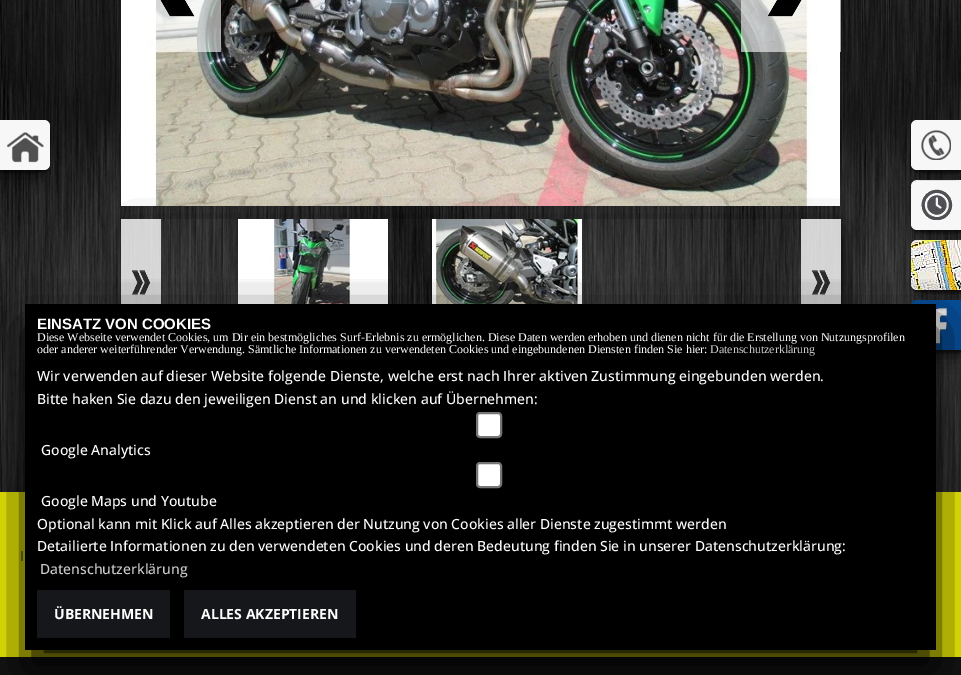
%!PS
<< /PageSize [961 675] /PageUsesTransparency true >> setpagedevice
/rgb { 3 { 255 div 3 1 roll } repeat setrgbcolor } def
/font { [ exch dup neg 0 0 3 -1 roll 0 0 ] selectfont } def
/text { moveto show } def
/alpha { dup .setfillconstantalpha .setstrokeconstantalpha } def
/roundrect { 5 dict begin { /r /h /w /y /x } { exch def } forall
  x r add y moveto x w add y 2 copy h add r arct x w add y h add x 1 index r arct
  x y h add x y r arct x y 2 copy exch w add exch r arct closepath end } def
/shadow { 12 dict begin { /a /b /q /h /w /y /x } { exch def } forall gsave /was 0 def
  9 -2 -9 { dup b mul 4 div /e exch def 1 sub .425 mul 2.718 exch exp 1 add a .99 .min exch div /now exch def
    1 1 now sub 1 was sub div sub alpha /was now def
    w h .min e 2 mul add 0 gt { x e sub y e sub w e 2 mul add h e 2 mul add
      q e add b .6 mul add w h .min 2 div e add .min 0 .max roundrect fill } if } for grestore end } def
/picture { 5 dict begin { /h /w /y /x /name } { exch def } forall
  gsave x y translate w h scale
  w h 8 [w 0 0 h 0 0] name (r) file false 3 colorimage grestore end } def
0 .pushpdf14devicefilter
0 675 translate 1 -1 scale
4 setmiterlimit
255 255 255 rgb
0 0 961 675 rectfill
(img_01.rgb) 0 0 961 492 picture
0 0 0 rgb
0 142 40 30 0 10 1 shadow
-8 124 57 48 5 1 0.5 shadow
247 247 247 rgb
-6 120 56 50 6 roundrect fill
(img_02.rgb) 6 132 38 31 picture
(img_03.rgb) 121 0 719 206 picture
0.6 alpha
255 255 255 rgb
153 0 68 52 rectfill
1 alpha
(img_04.rgb) 159 0 36 17 picture
0.6 alpha
741 0 100 52 rectfill
1 alpha
(img_05.rgb) 767 0 35 17 picture
gsave
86 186 moveto 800 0 rlineto 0 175 rlineto -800 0 rlineto closepath 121 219 moveto 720 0 rlineto 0 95 rlineto -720 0 rlineto closepath eoclip newpath
0 0 0 rgb
132 232 708 83 0 15 1 shadow
grestore
0.8 alpha
121 219 40 85 rectfill
1 alpha
(img_06.rgb) 132 270 18 26 picture
(img_07.rgb) 238 219 150 85 picture
(img_08.rgb) 432 219 150 85 picture
0.8 alpha
801 219 40 85 rectfill
1 alpha
(img_09.rgb) 812 270 18 25 picture
0 0 0 rgb
921 142 40 30 0 10 1 shadow
912 124 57 48 5 1 0.5 shadow
247 247 247 rgb
911 120 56 50 6 roundrect fill
(img_10.rgb) 921 130 30 30 picture
0 0 0 rgb
921 202 40 30 0 10 1 shadow
912 184 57 48 5 1 0.5 shadow
247 247 247 rgb
911 180 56 50 6 roundrect fill
(img_11.rgb) 911 180 48 40 picture
0 0 0 rgb
921 262 40 30 0 10 1 shadow
912 244 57 48 5 1 0.5 shadow
(img_12.rgb) 911 240 50 50 picture
921 322 40 30 0 10 1 shadow
912 304 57 48 5 1 0.5 shadow
5 82 160 rgb
911 300 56 50 6 roundrect fill
(img_13.rgb) 936 308 11 36 picture
247 246 6 rgb
0 492 961 165 rectfill
21 21 21 rgb
0 657 961 18 rectfill
gsave
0 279 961 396 rectclip
0 0 0 rgb
25 326 911 346 0 25 1 shadow
grestore
0 0 0 rgb
25 304 911 346 rectfill
255 255 255 rgb
477 413 24 24 3 roundrect gsave fill grestore
118 118 118 rgb
2 setlinewidth
stroke
255 255 255 rgb
477 463 24 24 3 roundrect gsave fill grestore
118 118 118 rgb
stroke
22 23 26 rgb
37 590 133 48 rectfill
184 590 172 48 rectfill
/OpenSans-Medium 14 font
51 51 51 rgb
(I) 20 561 text
/LiberationSans-Bold 15 font
255 255 255 rgb
(EINSATZ VON COOKIES) 37 329 text
/LiberationSerif-Regular 12 font
(Diese Webseite verwendet Cookies, um Dir ein bestmögliches Surf-Erlebnis zu ermöglichen. Diese Daten werden erhoben und dienen nicht für die Erstellung von Nutzungsprofilen) 37 341 text
(oder anderer weiterführender Verwendung. Sämtliche Informationen zu verwendeten Cookies und eingebundenen Diensten finden Sie hier:) 37 353 text
204 204 204 rgb
(Datenschutzerklärung) 710 353 text
/OpenSans-Medium 14 font
255 255 255 rgb
(Wir verwenden auf dieser Website folgende Dienste, welche erst nach Ihrer aktiven Zustimmung eingebunden werden.) 37 381 text
(Bitte haken Sie dazu den jeweiligen Dienst an und klicken auf Übernehmen:) 37 404 text
(Google Analytics) 41 455 text
(Google Maps und Youtube) 41 506 text
(Optional kann mit Klick auf Alles akzeptieren der Nutzung von Cookies aller Dienste zugestimmt werden) 37 529 text
(Detailierte Informationen zu den verwendeten Cookies und deren Bedeutung finden Sie in unserer Datenschutzerklärung:) 37 551 text
204 204 204 rgb
(Datenschutzerklärung) 40 574 text
/OpenSans-Bold 14 font
255 255 255 rgb
(ÜBERNEHMEN) 54 619 text
(ALLES AKZEPTIEREN) 201 619 text
.poppdf14devicefilter showpage
